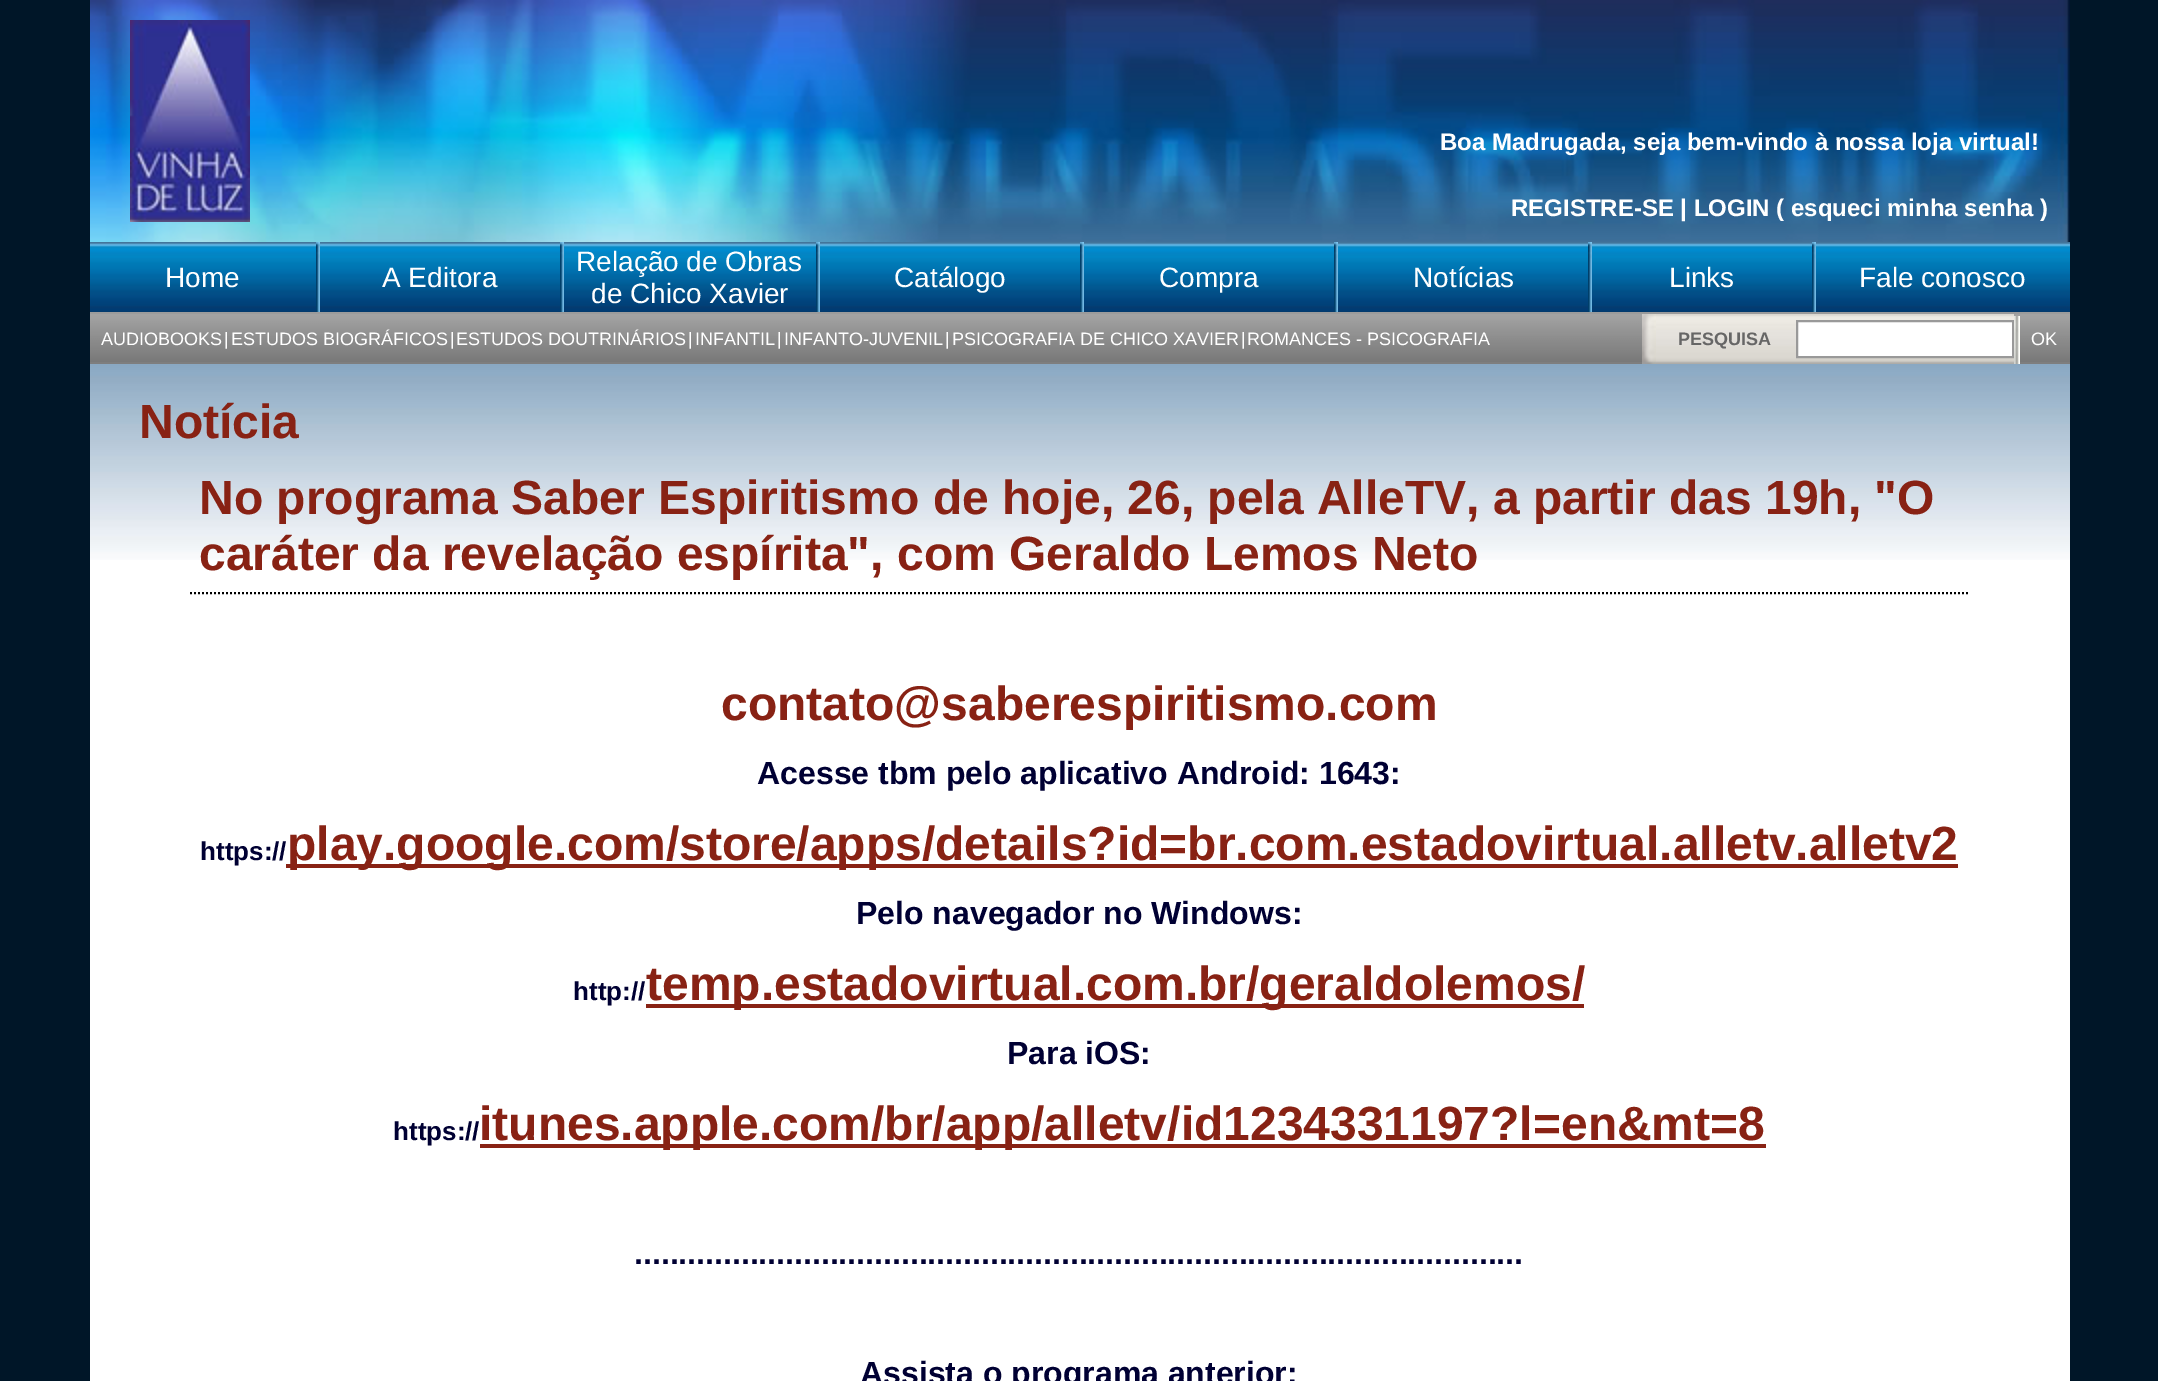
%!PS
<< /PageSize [2158 1381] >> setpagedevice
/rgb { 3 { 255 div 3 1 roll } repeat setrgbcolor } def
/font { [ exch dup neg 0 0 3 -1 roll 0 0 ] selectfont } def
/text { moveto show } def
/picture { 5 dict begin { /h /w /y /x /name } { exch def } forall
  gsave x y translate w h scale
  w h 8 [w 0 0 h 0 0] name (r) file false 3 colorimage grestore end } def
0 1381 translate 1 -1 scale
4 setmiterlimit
0 22 40 rgb
0 0 2158 1381 rectfill
(img_01.rgb) 90 0 1980 242 picture
(img_02.rgb) 130 20 120 202 picture
(img_03.rgb) 90 242 1980 70 picture
(img_04.rgb) 316 242 4 70 picture
(img_04.rgb) 560 242 4 70 picture
(img_04.rgb) 816 242 4 70 picture
(img_04.rgb) 1080 242 4 70 picture
(img_04.rgb) 1334 242 4 70 picture
(img_04.rgb) 1588 242 4 70 picture
(img_04.rgb) 1812 242 4 70 picture
255 255 255 rgb
90 560 1980 821 rectfill
(img_05.rgb) 90 364 1980 196 picture
(img_06.rgb) 90 314 1980 48 picture
155 155 155 rgb
90 312 1980 2 rectfill
126 126 126 rgb
90 362 1980 2 rectfill
(img_07.rgb) 1642 314 14 50 picture
(img_08.rgb) 1656 314 140 50 picture
(img_09.rgb) 1796 314 218 50 picture
255 255 255 rgb
1797 321 moveto 216 0 rlineto 0 36 rlineto -216 0 rlineto closepath gsave fill grestore
153 153 153 rgb
2 setlinewidth
stroke
(img_10.rgb) 2014 316 6 48 picture
0 0 0 rgb
[2 2] 0 setdash
190 593 moveto 1780 0 rlineto stroke
136 34 20 rgb
646 1004 938 4 rectfill
480 1144 1286 4 rectfill
/LiberationSans-Bold 24 font
255 255 255 rgb
(Boa Madrugada, seja bem-vindo à nossa loja virtual!) 1440 150 text
(REGISTRE-SE | LOGIN \( esqueci minha senha \)) 1511 216 text
/LiberationSans-Regular 28 font
(Home) 165 287 text
(A Editora) 382 287 text
(Relação de Obras) 576 271 text
(de Chico Xavier) 591 303 text
(Catálogo) 894 287 text
(Compra) 1159 287 text
(Notícias) 1413 287 text
(Links) 1669 287 text
(Fale conosco) 1859 287 text
/LiberationSans-Regular 18 font
(AUDIOBOOKS) 101 345 text
(|) 224 345 text
(ESTUDOS BIOGRÁFICOS) 231 345 text
(|) 450 345 text
(ESTUDOS DOUTRINÁRIOS) 456 345 text
(|) 688 345 text
(INFANTIL) 695 345 text
(|) 777 345 text
(INFANTO-JUVENIL) 784 345 text
(|) 945 345 text
(PSICOGRAFIA DE CHICO XAVIER) 952 345 text
(|) 1241 345 text
(ROMANCES - PSICOGRAFIA) 1247 345 text
/LiberationSans-Bold 18 font
102 102 102 rgb
(PESQUISA) 1678 345 text
/LiberationSans-Regular 18 font
255 255 255 rgb
(OK) 2031 345 text
/LiberationSans-Bold 48 font
136 34 20 rgb
(Notícia) 139 438 text
(No programa Saber Espiritismo de hoje, 26, pela AlleTV, a partir das 19h, "O) 199 514 text
(caráter da revelação espírita", com Geraldo Lemos Neto) 199 570 text
(contato@saberespiritismo.com) 721 720 text
/LiberationSans-Bold 32 font
0 0 51 rgb
(Acesse tbm pelo aplicativo Android: 1643:) 757 784 text
/LiberationSans-Bold 26 font
(https://) 200 860 text
136 34 20 rgb
286 864 1672 4 rectfill
/LiberationSans-Bold 48 font
(play.google.com/store/apps/details?id=br.com.estadovirtual.alletv.alletv2) 287 860 text
/LiberationSans-Bold 32 font
0 0 51 rgb
(Pelo navegador no Windows:) 856 924 text
/LiberationSans-Bold 26 font
(http://) 573 1000 text
/LiberationSans-Bold 48 font
136 34 20 rgb
(temp.estadovirtual.com.br/geraldolemos/) 646 1000 text
/LiberationSans-Bold 32 font
0 0 51 rgb
(Para iOS:) 1007 1064 text
/LiberationSans-Bold 26 font
(https://) 393 1140 text
/LiberationSans-Bold 48 font
136 34 20 rgb
(itunes.apple.com/br/app/alletv/id1234331197?l=en&mt=8) 479 1140 text
/LiberationSans-Bold 32 font
0 0 51 rgb
(....................................................................................................) 634 1264 text
(Assista o programa anterior:) 860 1384 text
showpage
